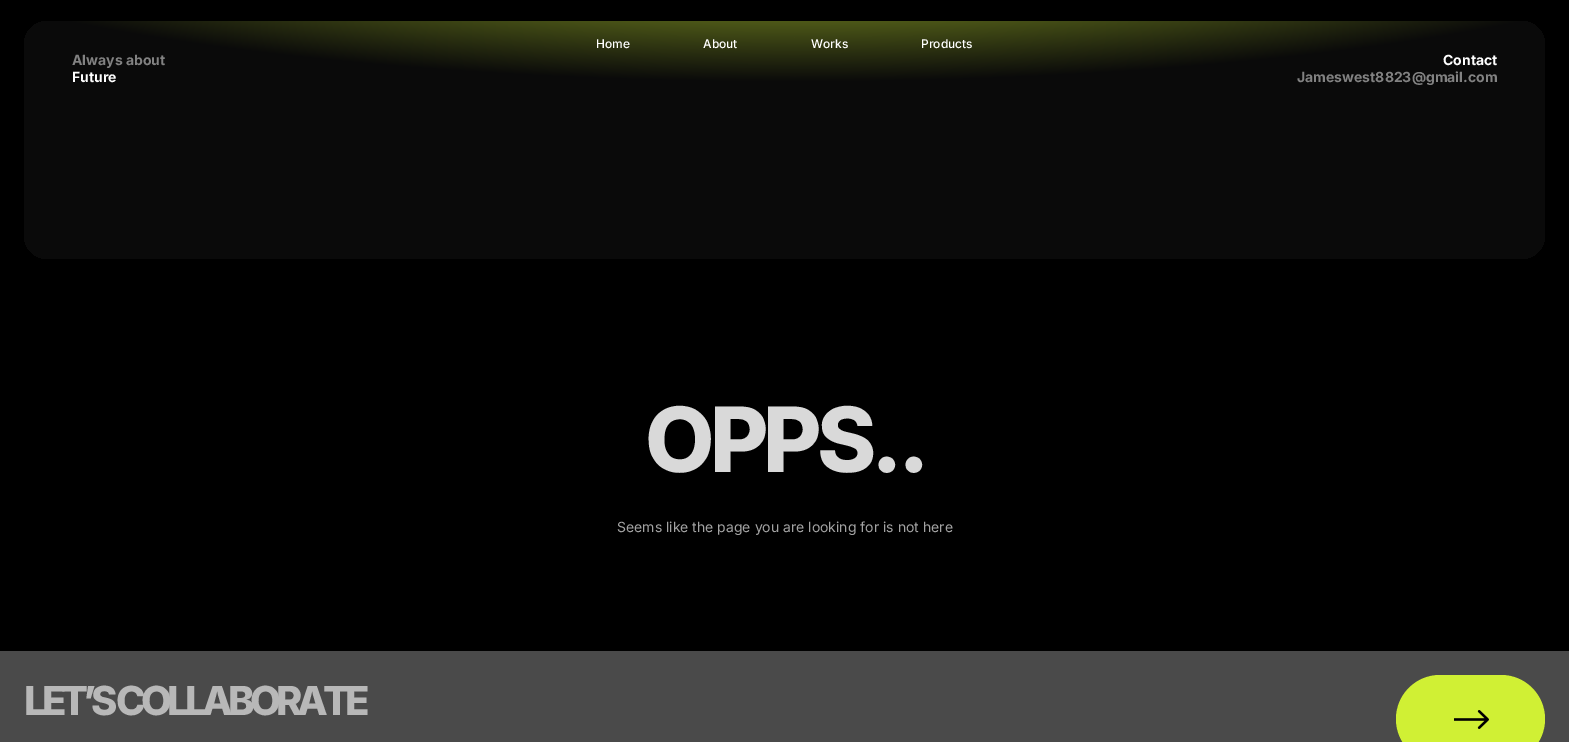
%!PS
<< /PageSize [1569 742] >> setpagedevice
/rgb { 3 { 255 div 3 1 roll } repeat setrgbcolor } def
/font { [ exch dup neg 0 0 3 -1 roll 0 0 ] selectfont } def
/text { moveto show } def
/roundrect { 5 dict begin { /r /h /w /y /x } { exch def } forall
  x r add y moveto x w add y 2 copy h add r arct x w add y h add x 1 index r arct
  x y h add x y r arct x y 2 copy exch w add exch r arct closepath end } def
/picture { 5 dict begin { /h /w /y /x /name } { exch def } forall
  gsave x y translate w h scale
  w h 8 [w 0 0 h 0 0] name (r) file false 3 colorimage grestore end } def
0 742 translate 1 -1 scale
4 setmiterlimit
0 0 0 rgb
0 0 1569 742 rectfill
gsave 24 21 1521 238 24 roundrect clip newpath 795 -97 translate 973 179 scale
<< /ShadingType 3 /ColorSpace /DeviceRGB /Coords [0 0 0 0 0 1] /Extend [true true] /Function << /FunctionType 2 /Domain [0 1] /C0 [0.816 0.941 0.204] /C1 [0.039 0.039 0.039] /N 1 >> >> shfill grestore
74 74 74 rgb
0 651 1569 91 rectfill
208 240 52 rgb
1396 675 149 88 44 roundrect fill
(img_01.rgb) 1454 710 35 19 picture
/Inter-Medium 12 font
255 255 255 rgb
(Home) 596 48 text
(About) 703 48 text
(Works) 811 48 text
(Products) 921 48 text
/Inter-Bold 14 font
130 130 130 rgb
(Always about) 72 65 text
255 255 255 rgb
(Future) 72 82 text
(Contact) 1443 65 text
130 130 130 rgb
(Jameswest8823@gmail.com) 1297 82 text
/Inter-ExtraBold 90 font
217 217 217 rgb
645 472 moveto -5 0 (OPPS..) ashow
/Inter-Regular 14 font
163 163 163 rgb
(Seems like the page you are looking for is not here) 617 532 text
/Inter-ExtraBold 40 font
184 184 184 rgb
24 715 moveto -5 0 (LET’S COLLABORATE) ashow
showpage
